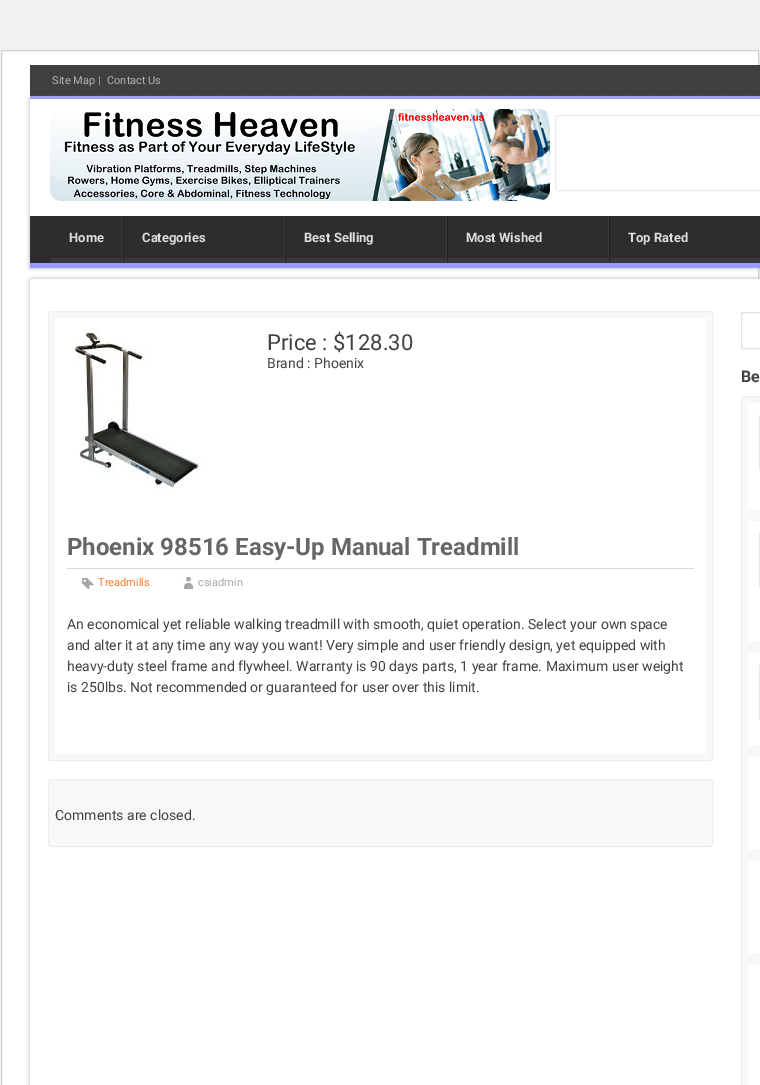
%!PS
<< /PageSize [760 1085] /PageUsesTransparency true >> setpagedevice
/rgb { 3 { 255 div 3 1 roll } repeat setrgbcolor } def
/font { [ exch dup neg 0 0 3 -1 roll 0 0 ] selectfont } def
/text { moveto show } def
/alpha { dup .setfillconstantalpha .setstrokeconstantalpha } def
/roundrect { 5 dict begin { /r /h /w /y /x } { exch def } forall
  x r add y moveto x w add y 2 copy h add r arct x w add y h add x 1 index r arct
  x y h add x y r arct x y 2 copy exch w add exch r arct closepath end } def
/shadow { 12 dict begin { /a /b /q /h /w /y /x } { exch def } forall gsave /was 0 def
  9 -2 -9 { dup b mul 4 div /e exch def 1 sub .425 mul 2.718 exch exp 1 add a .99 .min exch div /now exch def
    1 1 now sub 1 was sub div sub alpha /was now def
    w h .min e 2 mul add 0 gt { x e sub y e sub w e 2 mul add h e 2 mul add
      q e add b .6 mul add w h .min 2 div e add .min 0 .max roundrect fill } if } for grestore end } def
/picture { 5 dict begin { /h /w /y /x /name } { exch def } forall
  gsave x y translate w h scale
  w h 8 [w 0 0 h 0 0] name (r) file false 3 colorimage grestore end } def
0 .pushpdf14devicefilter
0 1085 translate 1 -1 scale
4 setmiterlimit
241 241 241 rgb
0 0 760 1085 rectfill
255 255 255 rgb
1.5 50.5 moveto 757 0 rlineto 0 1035 rlineto -757 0 rlineto closepath gsave fill grestore
204 208 212 rgb
stroke
(img_01.rgb) 30 65 730 31 picture
153 153 255 rgb
30 96 730 3 rectfill
170 170 170 rgb
30 99 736 169 0 2 1 shadow
255 255 255 rgb
30 99 730 117 rectfill
(img_02.rgb) 50 109 500 92 picture
235 235 235 rgb
555.5 115.5 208 75 2.5 roundrect stroke
45 45 45 rgb
30 216 730 47 rectfill
153 153 255 rgb
30 263 730 5 rectfill
57 57 57 rgb
122 216 1 47 rectfill
51 258 72 5 rectfill
284 216 1 47 rectfill
285 263 moveto -162 0 rlineto 1 -5 rlineto 160 0 rlineto closepath fill
34 34 34 rgb
123 263 moveto 0 -47 rlineto 1 0 rlineto 0 42 rlineto closepath fill
57 57 57 rgb
446 216 1 47 rectfill
447 263 moveto -162 0 rlineto 1 -5 rlineto 160 0 rlineto closepath fill
34 34 34 rgb
285 263 moveto 0 -47 rlineto 1 0 rlineto 0 42 rlineto closepath fill
57 57 57 rgb
608 216 1 47 rectfill
609 263 moveto -162 0 rlineto 1 -5 rlineto 160 0 rlineto closepath fill
34 34 34 rgb
447 263 moveto 0 -47 rlineto 1 0 rlineto 0 42 rlineto closepath fill
57 57 57 rgb
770 263 moveto -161 0 rlineto 1 -5 rlineto 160 0 rlineto closepath fill
34 34 34 rgb
609 263 moveto 0 -47 rlineto 1 0 rlineto 0 42 rlineto closepath fill
170 170 170 rgb
30 279 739 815 3 2 1 shadow
255 255 255 rgb
30 279 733 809 3 roundrect fill
248 248 248 rgb
48.5 311.5 664 449 2.5 roundrect gsave fill grestore
238 238 238 rgb
stroke
255 255 255 rgb
55 318 651 436 rectfill
(img_03.rgb) 73 330 130 160 picture
218 218 218 rgb
67 568 627 1 rectfill
(img_04.rgb) 82 577 12 12 picture
(img_05.rgb) 182 576 12 13 picture
248 248 248 rgb
48.5 779.5 664 67 2.5 roundrect gsave fill grestore
238 238 238 rgb
stroke
224 224 224 rgb
741.5 312.5 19 36 rectstroke
248 248 248 rgb
741.5 396.5 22 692 2.5 roundrect gsave fill grestore
238 238 238 rgb
stroke
255 255 255 rgb
748 403 12 107 rectfill
245 245 245 rgb
748 510 12 1 rectfill
231 231 231 rgb
3 setlinewidth
760.5 416.5 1 52 rectstroke
255 255 255 rgb
748 521 12 121 rectfill
245 245 245 rgb
748 642 12 1 rectfill
231 231 231 rgb
760.5 534.5 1 52 rectstroke
255 255 255 rgb
748 653 12 93 rectfill
245 245 245 rgb
748 746 12 1 rectfill
231 231 231 rgb
760.5 666.5 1 52 rectstroke
255 255 255 rgb
748 757 12 93 rectfill
245 245 245 rgb
748 850 12 1 rectfill
255 255 255 rgb
748 861 12 93 rectfill
245 245 245 rgb
748 954 12 1 rectfill
255 255 255 rgb
748 965 12 120 rectfill
/Roboto-Regular 11 font
179 178 178 rgb
(Site Map |) 52 84 text
(Contact Us) 107 84 text
/Roboto-Bold 13 font
221 221 221 rgb
(Home) 69 242 text
(Categories) 142 242 text
(Best Selling) 304 242 text
(Most Wished) 466 242 text
(Top Rated) 628 242 text
/Roboto-Regular 22 font
66 66 66 rgb
(Price : $128.30) 267 350 text
/Roboto-Regular 14 font
(Brand : Phoenix) 267 368 text
/Roboto-Bold 24 font
102 102 102 rgb
(Phoenix 98516 Easy-Up Manual Treadmill) 67 555 text
/Roboto-Regular 11 font
245 121 43 rgb
(Treadmills) 98 586 text
168 168 168 rgb
(csiadmin) 198 586 text
/Roboto-Regular 14 font
66 66 66 rgb
(An economical yet reliable walking treadmill with smooth, quiet operation. Select your own space) 67 629 text
(and alter it at any time any way you want! Very simple and user friendly design, yet equipped with) 67 650 text
(heavy-duty steel frame and flywheel. Warranty is 90 days parts, 1 year frame. Maximum user weight) 67 671 text
(is 250lbs. Not recommended or guaranteed for user over this limit.) 67 692 text
(Comments are closed.) 55 820 text
/Roboto-Bold 16 font
(Be) 741 382 text
.poppdf14devicefilter showpage
